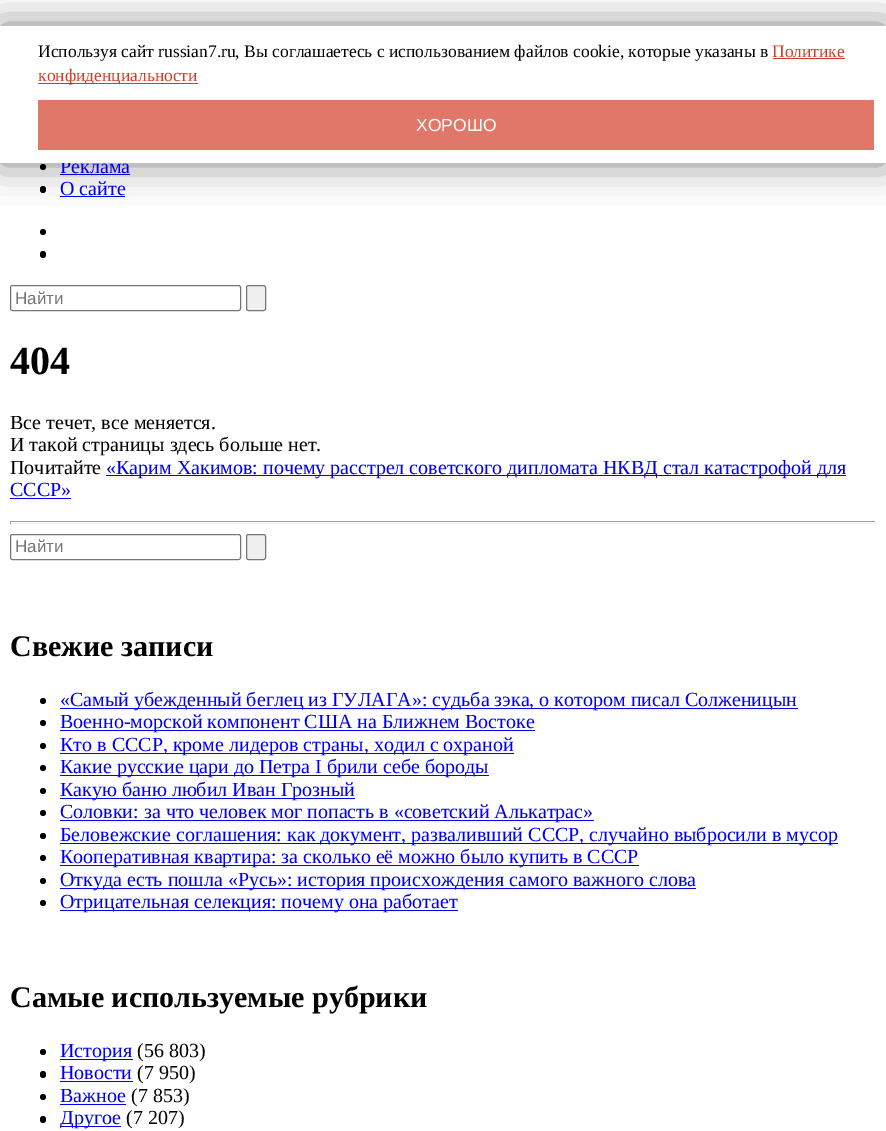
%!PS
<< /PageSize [886 1131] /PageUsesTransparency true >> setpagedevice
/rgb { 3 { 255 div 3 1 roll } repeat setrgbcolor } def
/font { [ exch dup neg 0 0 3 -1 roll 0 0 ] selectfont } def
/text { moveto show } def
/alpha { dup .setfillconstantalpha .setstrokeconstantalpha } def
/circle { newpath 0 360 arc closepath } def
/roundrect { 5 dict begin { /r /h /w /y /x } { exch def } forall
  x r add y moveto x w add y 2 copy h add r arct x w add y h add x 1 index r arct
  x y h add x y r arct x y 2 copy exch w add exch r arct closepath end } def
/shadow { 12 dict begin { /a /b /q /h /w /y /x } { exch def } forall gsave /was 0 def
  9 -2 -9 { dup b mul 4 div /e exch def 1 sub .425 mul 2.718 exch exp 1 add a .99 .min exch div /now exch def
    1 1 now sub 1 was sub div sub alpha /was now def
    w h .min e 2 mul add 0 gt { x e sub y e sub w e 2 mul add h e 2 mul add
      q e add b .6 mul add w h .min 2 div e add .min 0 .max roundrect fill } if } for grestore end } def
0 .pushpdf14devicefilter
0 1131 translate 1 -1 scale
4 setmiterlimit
255 255 255 rgb
0 0 886 1131 rectfill
0 0 0 rgb
43 167 3 circle fill
0 0 238 rgb
60 174 70 1 rectfill
0 0 0 rgb
40 186 6 7 3 roundrect fill
0 0 238 rgb
60 196 65 1 rectfill
0 0 0 rgb
0 26 886 137 0 19 0.5 shadow
43 232 3 circle fill
40 251 6 7 3 roundrect fill
118 118 118 rgb
10.5 285.5 230 25 2 roundrect stroke
239 239 239 rgb
246.5 285.5 19 25 2 roundrect gsave fill grestore
118 118 118 rgb
stroke
0 0 238 rgb
106 475 740 1 rectfill
10 498 61 1 rectfill
159 159 159 rgb
10 521 866 1 rectfill
238 238 238 rgb
875 521 1 3 rectfill
10 523 866 1 rectfill
159 159 159 rgb
10 521 1 3 rectfill
118 118 118 rgb
10.5 534.5 230 25 2 roundrect stroke
239 239 239 rgb
246.5 534.5 19 25 2 roundrect gsave fill grestore
118 118 118 rgb
stroke
0 0 0 rgb
43 701 3 circle fill
0 0 238 rgb
60 708 738 1 rectfill
0 0 0 rgb
43 723 3 circle fill
0 0 238 rgb
60 730 475 1 rectfill
0 0 0 rgb
43 746 3 circle fill
0 0 238 rgb
60 753 454 1 rectfill
0 0 0 rgb
43 768 3 circle fill
0 0 238 rgb
60 775 429 1 rectfill
0 0 0 rgb
43 791 3 circle fill
0 0 238 rgb
60 798 295 1 rectfill
0 0 0 rgb
43 813 3 circle fill
0 0 238 rgb
60 820 534 1 rectfill
0 0 0 rgb
43 836 3 circle fill
0 0 238 rgb
60 843 778 1 rectfill
0 0 0 rgb
43 858 3 circle fill
0 0 238 rgb
60 865 579 1 rectfill
0 0 0 rgb
43 881 3 circle fill
0 0 238 rgb
60 888 636 1 rectfill
0 0 0 rgb
43 903 3 circle fill
0 0 238 rgb
60 910 398 1 rectfill
0 0 0 rgb
43 1052 3 circle fill
0 0 238 rgb
60 1059 73 1 rectfill
0 0 0 rgb
40 1071 6 7 3 roundrect fill
0 0 238 rgb
60 1081 73 1 rectfill
0 0 0 rgb
43 1097 3 circle fill
0 0 238 rgb
60 1104 66 1 rectfill
0 0 0 rgb
40 1116 6 7 3 roundrect fill
0 0 238 rgb
60 1126 61 1 rectfill
/LiberationSerif-Regular 20 font
(Реклама) 60 173 text
255 255 255 rgb
0 26 886 137 rectfill
224 119 104 rgb
38 100 836 50 rectfill
/LiberationSans-Regular 17.5 font
255 255 255 rgb
(ХОРОШО) 416 131 text
210 60 39 rgb
38 83 160 1 rectfill
/LiberationSerif-Regular 17.5 font
(конфиденциальности) 38 81 text
(Политике) 772 57 text
773 58 72 1 rectfill
0 0 0 rgb
(Используя сайт russian7.ru, Вы соглашаетесь с использованием файлов cookie, которые указаны в) 38 57 text
/LiberationSerif-Regular 20 font
0 0 238 rgb
(О сайте) 60 195 text
/LiberationSans-Regular 17 font
117 117 117 rgb
(Найти) 15 304 text
/LiberationSerif-Bold 40 font
0 0 0 rgb
(404) 10 374 text
/LiberationSerif-Regular 20 font
(Все течет, все меняется.) 10 429 text
(И такой страницы здесь больше нет.) 10 451 text
(Почитайте) 10 474 text
0 0 238 rgb
(«Карим Хакимов: почему расстрел советского дипломата НКВД стал катастрофой для) 106 474 text
(СССР») 10 496 text
/LiberationSans-Regular 17 font
117 117 117 rgb
(Найти) 15 552 text
/LiberationSerif-Bold 30 font
0 0 0 rgb
(Свежие записи) 10 656 text
/LiberationSerif-Regular 20 font
0 0 238 rgb
(«Самый убежденный беглец из ГУЛАГА»: судьба зэка, о котором писал Солженицын) 60 706 text
(Военно-морской компонент США на Ближнем Востоке) 60 728 text
(Кто в СССР, кроме лидеров страны, ходил с охраной) 60 751 text
(Какие русские цари до Петра I брили себе бороды) 60 773 text
(Какую баню любил Иван Грозный) 60 796 text
(Соловки: за что человек мог попасть в «советский Алькатрас») 60 818 text
(Беловежские соглашения: как документ, разваливший СССР, случайно выбросили в мусор) 60 841 text
(Кооперативная квартира: за сколько её можно было купить в СССР) 60 863 text
(Откуда есть пошла «Русь»: история происхождения самого важного слова) 60 886 text
(Отрицательная селекция: почему она работает) 60 908 text
/LiberationSerif-Bold 30 font
0 0 0 rgb
(Самые используемые рубрики) 10 1007 text
/LiberationSerif-Regular 20 font
0 0 238 rgb
(История) 60 1057 text
0 0 0 rgb
(\(56 803\)) 137 1057 text
0 0 238 rgb
(Новости) 60 1079 text
0 0 0 rgb
(\(7 950\)) 137 1079 text
0 0 238 rgb
(Важное) 60 1102 text
0 0 0 rgb
(\(7 853\)) 131 1102 text
0 0 238 rgb
(Другое) 60 1124 text
0 0 0 rgb
(\(7 207\)) 126 1124 text
.poppdf14devicefilter showpage
